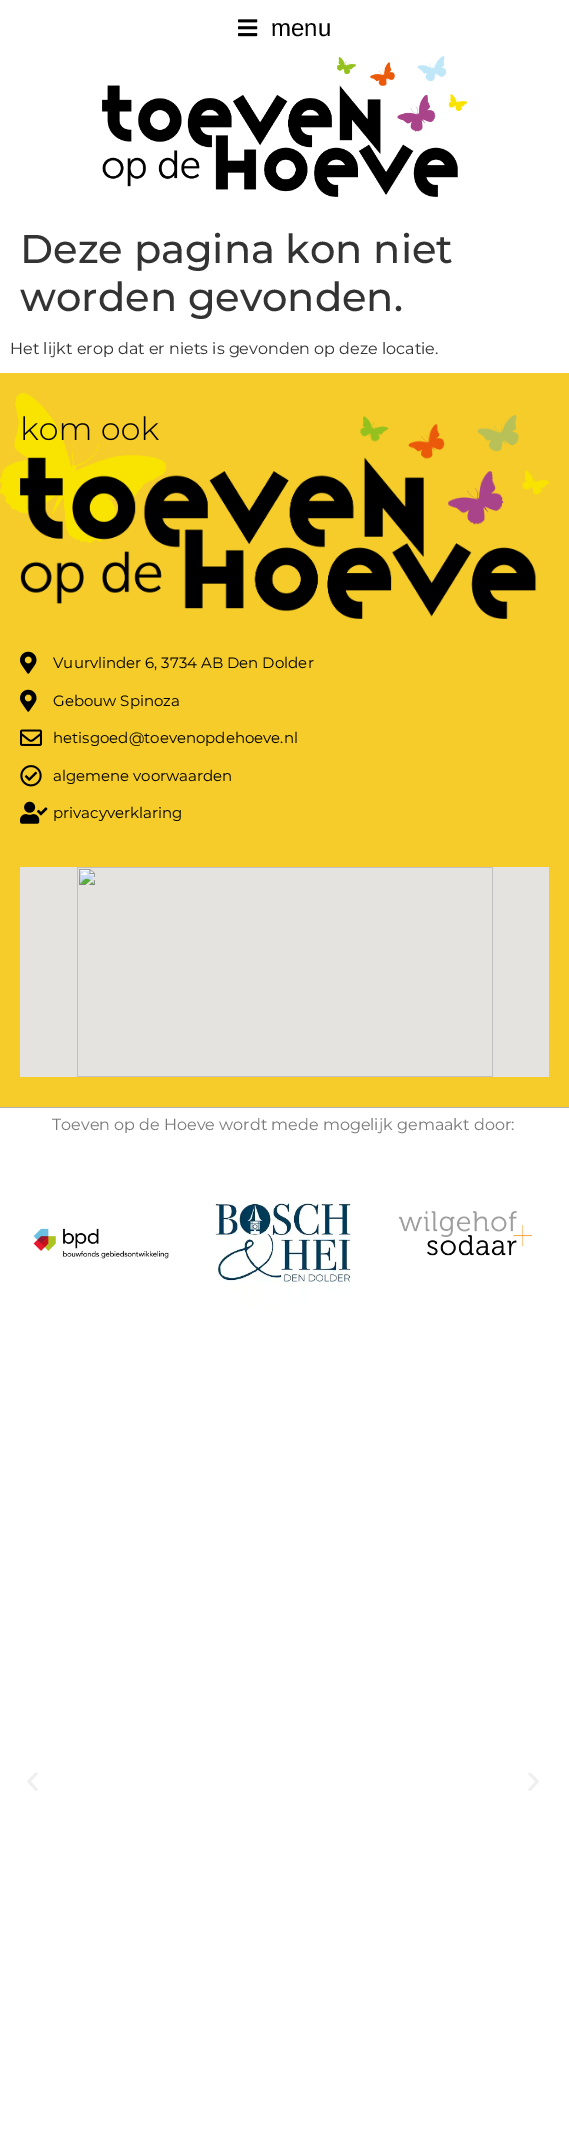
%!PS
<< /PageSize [569 2148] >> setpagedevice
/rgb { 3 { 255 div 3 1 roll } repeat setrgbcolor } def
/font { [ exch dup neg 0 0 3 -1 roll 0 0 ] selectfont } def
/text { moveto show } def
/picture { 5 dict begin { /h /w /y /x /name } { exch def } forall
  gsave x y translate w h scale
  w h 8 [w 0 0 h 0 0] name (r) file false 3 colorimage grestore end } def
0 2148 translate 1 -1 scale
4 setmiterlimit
255 255 255 rgb
0 0 569 2148 rectfill
(img_01.rgb) 238 19 20 18 picture
(img_02.rgb) 102 56 365 141 picture
245 204 42 rgb
0 373 569 734 rectfill
179 179 179 rgb
0 1107 569 1 rectfill
(img_03.rgb) 0 393 166 150 picture
(img_05.rgb) 20 651 17 23 picture
(img_05.rgb) 20 689 17 23 picture
(img_06.rgb) 20 729 22 17 picture
(img_07.rgb) 20 765 22 22 picture
(img_08.rgb) 20 801 28 23 picture
(img_09.rgb) 20 867 529 210 picture
(img_10.rgb) 33 1228 136 31 picture
(img_11.rgb) 215 1202 137 109 picture
(img_12.rgb) 398 1211 134 45 picture
(img_13.rgb) 27 1772 11 19 picture
(img_14.rgb) 528 1772 11 19 picture
/LiberationSans-Regular 24 font
0 0 0 rgb
(menu) 271 36 text
/Montserrat-Medium 40 font
51 51 51 rgb
(Deze pagina kon niet) 20 263 text
(worden gevonden.) 20 311 text
/Montserrat-Regular 16 font
(Het lijkt erop dat er niets is gevonden op deze locatie.) 10 354 text
/Montserrat-Light 32 font
0 0 0 rgb
(kom ook) 20 440 text
(img_04.rgb) 20 415 529 204 picture
/Montserrat-Regular 15 font
(Vuurvlinder 6, 3734 AB Den Dolder) 53 668 text
(Gebouw Spinoza) 53 706 text
(hetisgoed@toevenopdehoeve.nl) 53 743 text
(algemene voorwaarden) 53 781 text
(privacyverklaring) 53 818 text
/Montserrat-Regular 16 font
122 122 122 rgb
(Toeven op de Hoeve wordt mede mogelijk gemaakt door:) 52 1130 text
showpage
